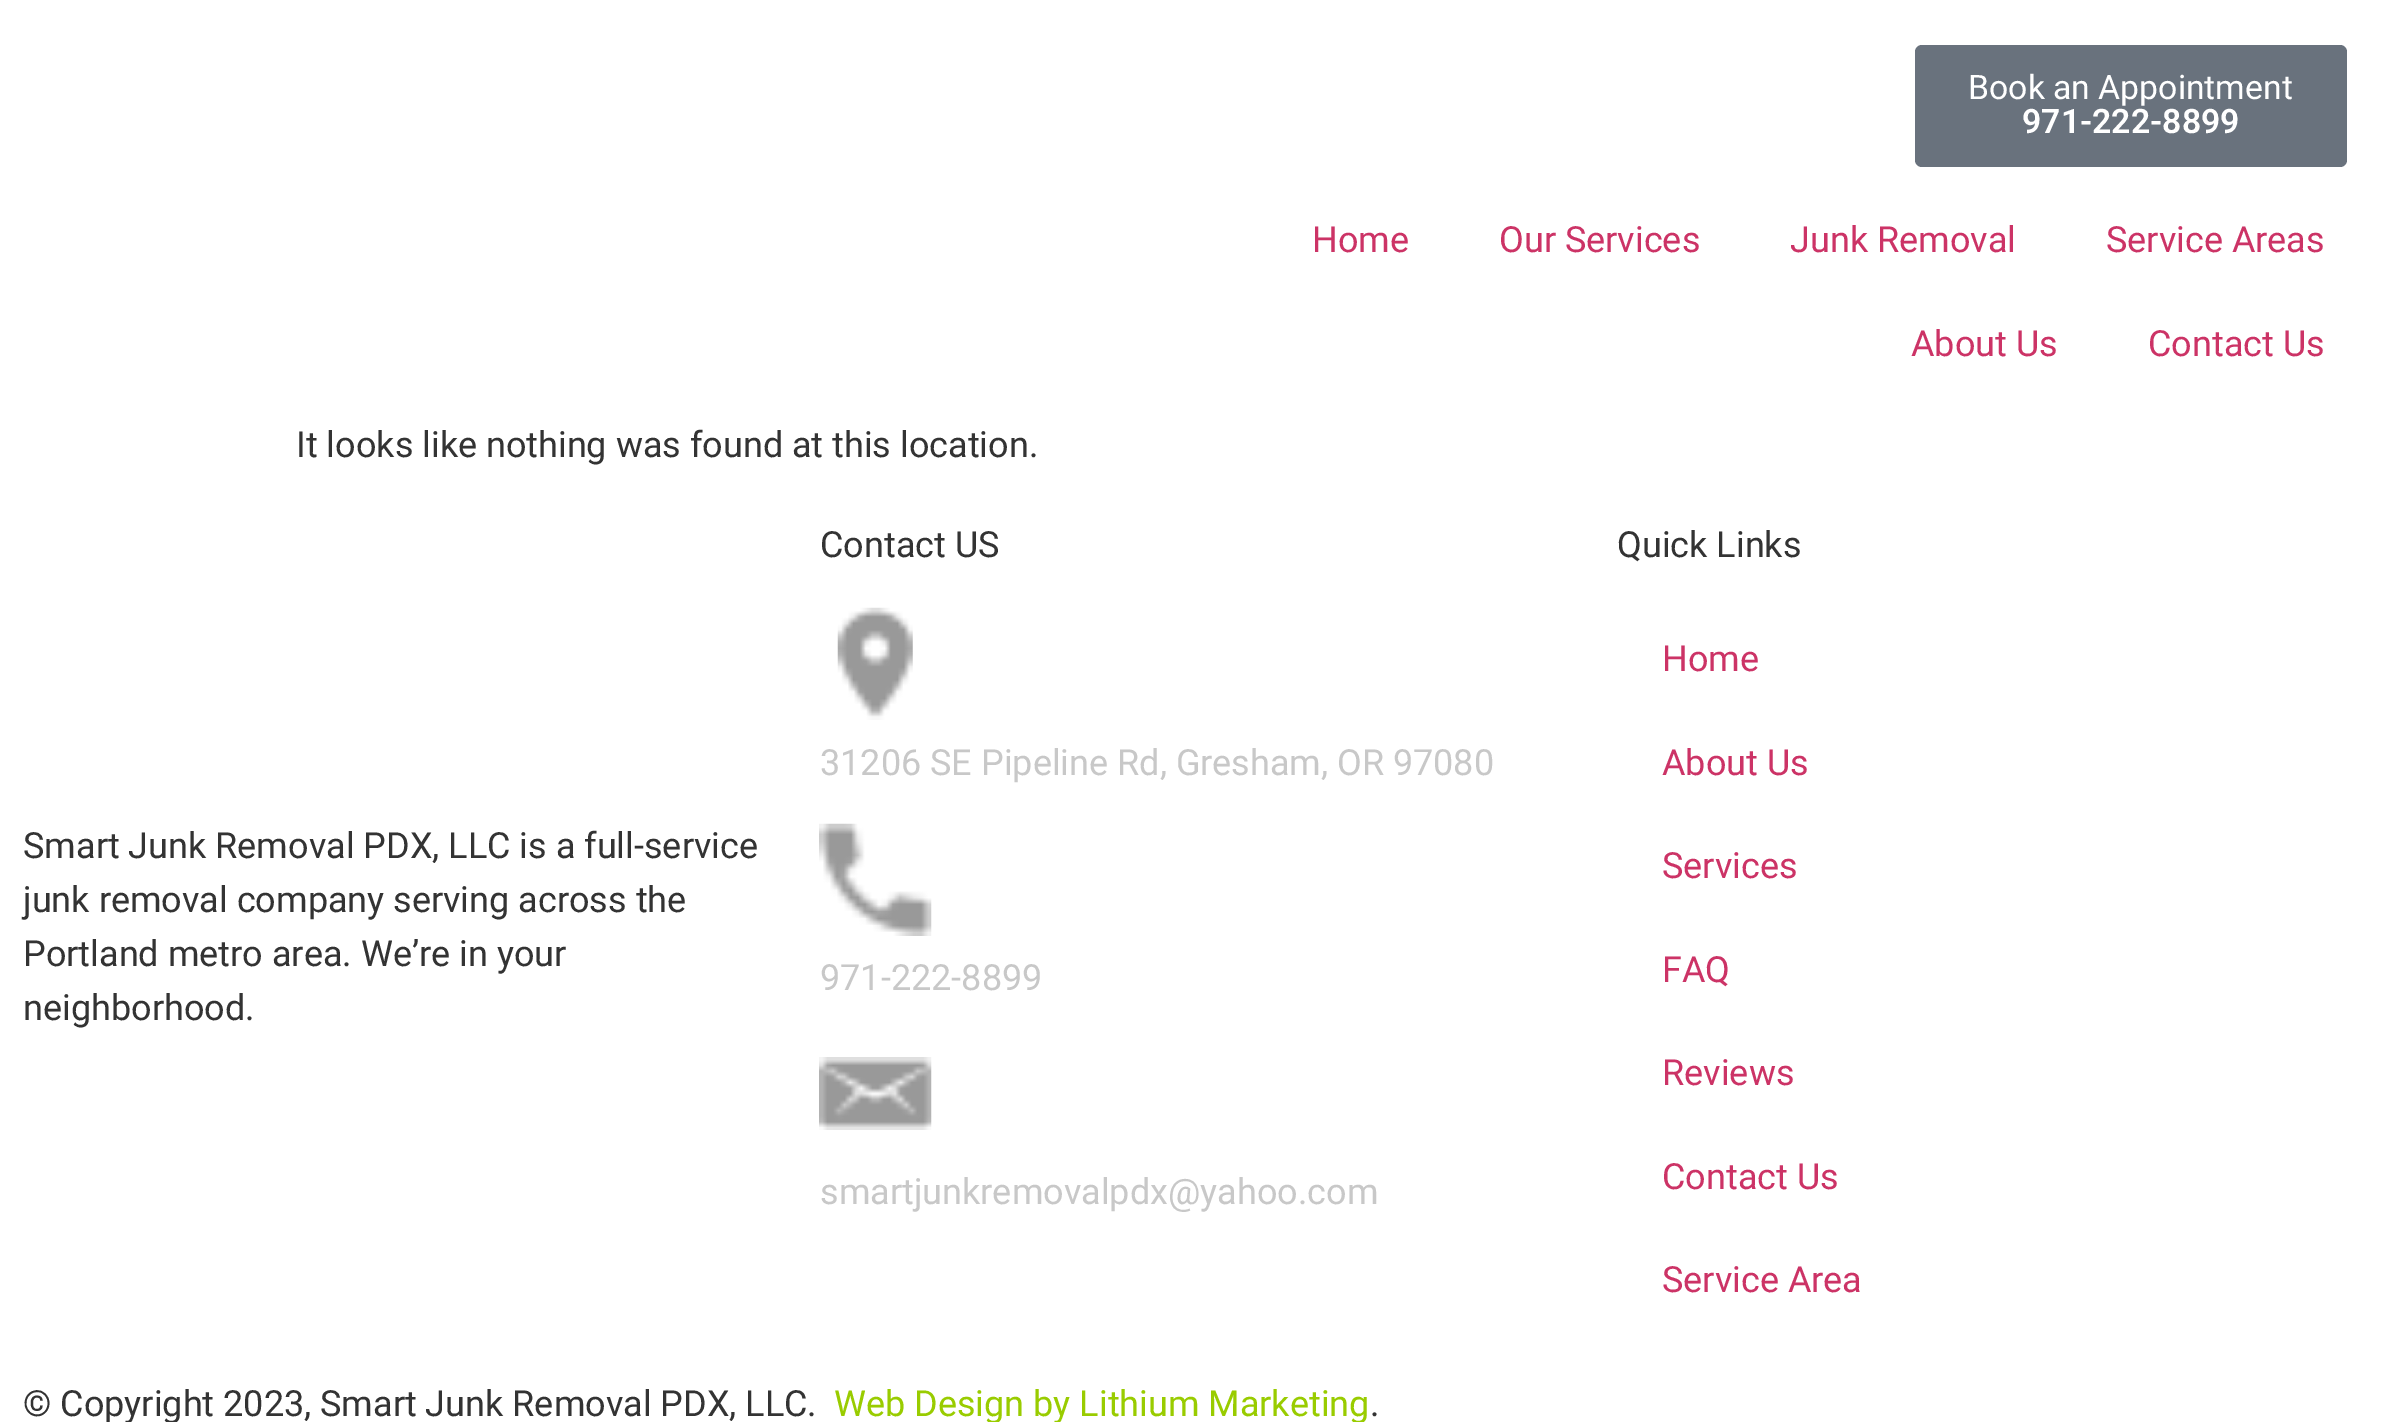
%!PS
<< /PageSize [2390 1422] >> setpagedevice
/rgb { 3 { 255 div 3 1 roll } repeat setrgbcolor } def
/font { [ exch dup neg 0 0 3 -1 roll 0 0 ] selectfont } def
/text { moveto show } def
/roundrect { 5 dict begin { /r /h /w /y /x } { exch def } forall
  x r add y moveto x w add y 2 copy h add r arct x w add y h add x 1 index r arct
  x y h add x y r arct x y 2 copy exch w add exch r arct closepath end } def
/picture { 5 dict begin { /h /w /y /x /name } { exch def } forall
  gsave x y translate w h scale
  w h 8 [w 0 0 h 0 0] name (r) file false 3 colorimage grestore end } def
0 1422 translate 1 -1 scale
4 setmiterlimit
255 255 255 rgb
0 0 2390 1422 rectfill
105 114 125 rgb
1915 45 432 122 7 roundrect fill
(img_01.rgb) 837 607 76 113 picture
(img_02.rgb) 819 823 113 113 picture
(img_03.rgb) 819 1057 113 73 picture
/Roboto-Regular 33.75 font
255 255 255 rgb
(Book an Appointment) 1968 99 text
/Roboto-SemiBold 33.75 font
(971-222-8899) 2022 133 text
/Roboto-Regular 36 font
204 51 102 rgb
(Home) 1312 252 text
(Our Services) 1499 252 text
(Junk Removal) 1790 252 text
(Service Areas) 2106 252 text
(About Us) 1911 356 text
(Contact Us) 2148 356 text
51 51 51 rgb
(It looks like nothing was found at this location.) 296 457 text
(Smart Junk Removal PDX, LLC is a full-service) 23 858 text
(junk removal company serving across the) 23 912 text
(Portland metro area. We’re in your) 23 966 text
(neighborhood.) 23 1020 text
(Contact US) 820 557 text
200 200 200 rgb
(31206 SE Pipeline Rd, Gresham, OR 97080) 820 775 text
(971-222-8899) 820 990 text
(smartjunkremovalpdx@yahoo.com) 820 1204 text
51 51 51 rgb
(Quick Links) 1617 557 text
204 51 102 rgb
(Home) 1662 671 text
(About Us) 1662 775 text
(Services) 1662 878 text
(FAQ) 1662 982 text
(Reviews) 1662 1085 text
(Contact Us) 1662 1189 text
(Service Area) 1662 1292 text
51 51 51 rgb
(© Copyright 2023, Smart Junk Removal PDX, LLC.) 23 1416 text
153 204 0 rgb
(Web Design by Lithium Marketing) 834 1416 text
51 51 51 rgb
(.) 1370 1416 text
showpage
